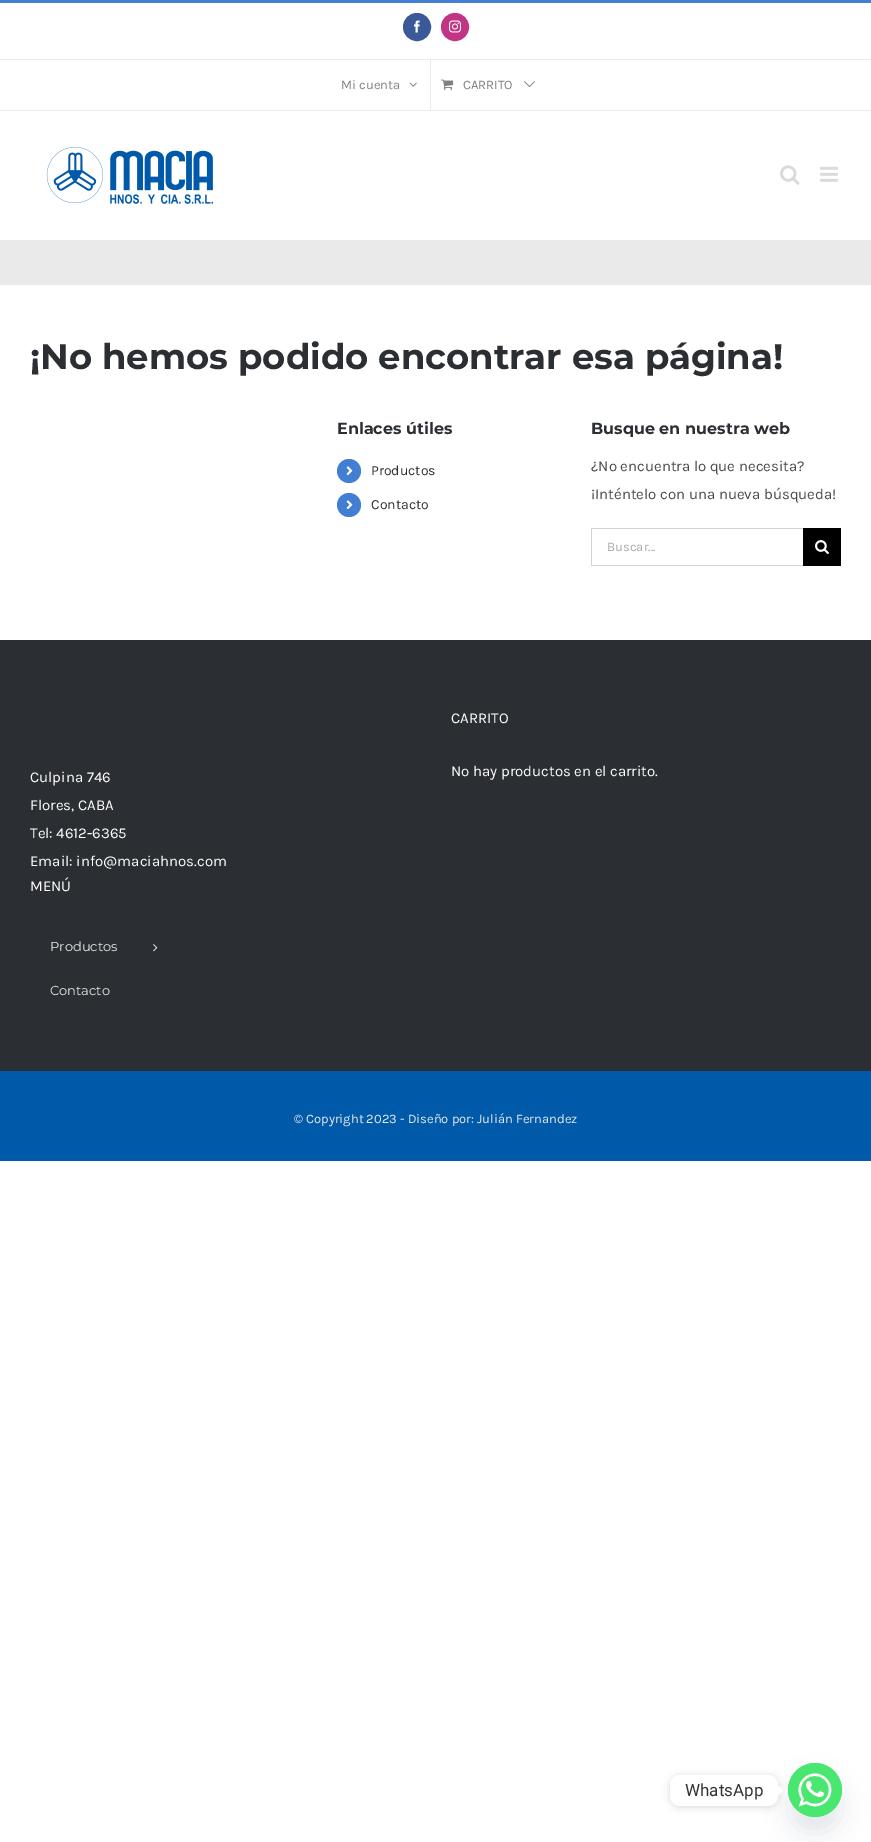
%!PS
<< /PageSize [871 1842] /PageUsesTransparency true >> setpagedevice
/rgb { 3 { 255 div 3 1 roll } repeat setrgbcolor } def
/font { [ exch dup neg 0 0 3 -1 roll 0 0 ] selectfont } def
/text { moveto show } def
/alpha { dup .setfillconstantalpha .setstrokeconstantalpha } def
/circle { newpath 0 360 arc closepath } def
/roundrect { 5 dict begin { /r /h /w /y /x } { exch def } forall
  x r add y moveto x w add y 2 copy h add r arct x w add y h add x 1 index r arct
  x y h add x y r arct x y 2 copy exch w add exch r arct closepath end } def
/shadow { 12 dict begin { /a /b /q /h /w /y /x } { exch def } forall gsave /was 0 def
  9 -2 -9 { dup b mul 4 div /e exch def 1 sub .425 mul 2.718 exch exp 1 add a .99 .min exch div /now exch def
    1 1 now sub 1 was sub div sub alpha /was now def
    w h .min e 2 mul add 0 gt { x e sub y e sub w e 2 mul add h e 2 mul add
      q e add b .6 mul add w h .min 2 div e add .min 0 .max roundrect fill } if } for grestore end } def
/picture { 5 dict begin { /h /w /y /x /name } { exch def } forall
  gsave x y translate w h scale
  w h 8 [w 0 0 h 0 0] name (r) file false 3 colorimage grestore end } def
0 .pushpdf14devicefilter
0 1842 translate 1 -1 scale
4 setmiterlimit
255 255 255 rgb
0 0 871 1842 rectfill
66 126 209 rgb
0 0 871 3 rectfill
234 234 234 rgb
0 110 871 1 rectfill
0 59 871 1 rectfill
59 89 152 rgb
417 27 13.5 circle gsave fill grestore
stroke
(img_01.rgb) 414 20 6 13 picture
193 53 132 rgb
455 27 13.5 circle gsave fill grestore
stroke
(img_02.rgb) 449 20 12 13 picture
(img_03.rgb) 409 82 8 5 picture
234 234 234 rgb
430 60 1 50 rectfill
(img_04.rgb) 441 79 13 11 picture
(img_05.rgb) 524 81 11 6 picture
(img_06.rgb) 46 147 167 57 picture
(img_07.rgb) 780 165 20 20 picture
(img_08.rgb) 820 166 18 16 picture
0 240 871 45 rectfill
66 126 209 rgb
349 471 12 circle fill
(img_09.rgb) 346 466 7 10 picture
349 505 12 circle fill
(img_09.rgb) 346 500 7 10 picture
210 210 210 rgb
591 528 212 1 rectfill
591 565 212 1 rectfill
591 528 1 38 rectfill
0 0 0 rgb
803 528 38 38 rectfill
(img_10.rgb) 815 540 14 14 picture
43 46 50 rgb
0 640 871 431 rectfill
(img_11.rgb) 153 944 5 8 picture
0 90 169 rgb
0 1071 871 90 rectfill
73 104 126 rgb
788 1779 54 54 27 12 0.16 shadow
(img_12.rgb) 788 1763 54 54 picture
0 0 0 rgb
670 1776 108 31 10 4 0.15 shadow
255 255 255 rgb
670 1775 108 31 10 roundrect fill
778 1795.5 moveto 0 -10 rlineto 5 5 rlineto closepath fill
/Karla-Regular 13 font
128 128 128 rgb
(Mi cuenta) 341 89 text
(CARRITO) 463 89 text
/Montserrat-Bold 35.4 font
43 46 50 rgb
(¡No hemos podido encontrar esa página!) 30 369 text
/Montserrat-Bold 16 font
(Enlaces útiles) 337 434 text
/Karla-Regular 14 font
(Productos) 371 475 text
(Contacto) 371 509 text
/Montserrat-Bold 16 font
(Busque en nuestra web) 591 434 text
/Karla-Regular 15 font
73 73 73 rgb
(¿No encuentra lo que necesita?) 591 471 text
(¡Inténtelo con una nueva búsqueda!) 591 499 text
/Karla-Regular 13 font
170 169 169 rgb
(Buscar...) 607 551 text
/Karla-Regular 15 font
255 255 255 rgb
(CARRITO) 451 723 text
(No hay productos en el carrito.) 451 776 text
(Culpina 746) 30 782 text
(Flores, CABA) 30 810 text
(Tel: 4612-6365) 30 838 text
(Email: info@maciahnos.com) 30 866 text
(MENÚ) 30 891 text
/Montserrat-Regular 13 font
234 234 234 rgb
(Productos) 50 951 text
(Contacto) 50 995 text
/Karla-Regular 13 font
(© Copyright 2023 - Diseño por: Julián Fernandez) 294 1123 text
/Roboto-Regular 17 font
51 51 51 rgb
(WhatsApp) 685 1796 text
.poppdf14devicefilter showpage
